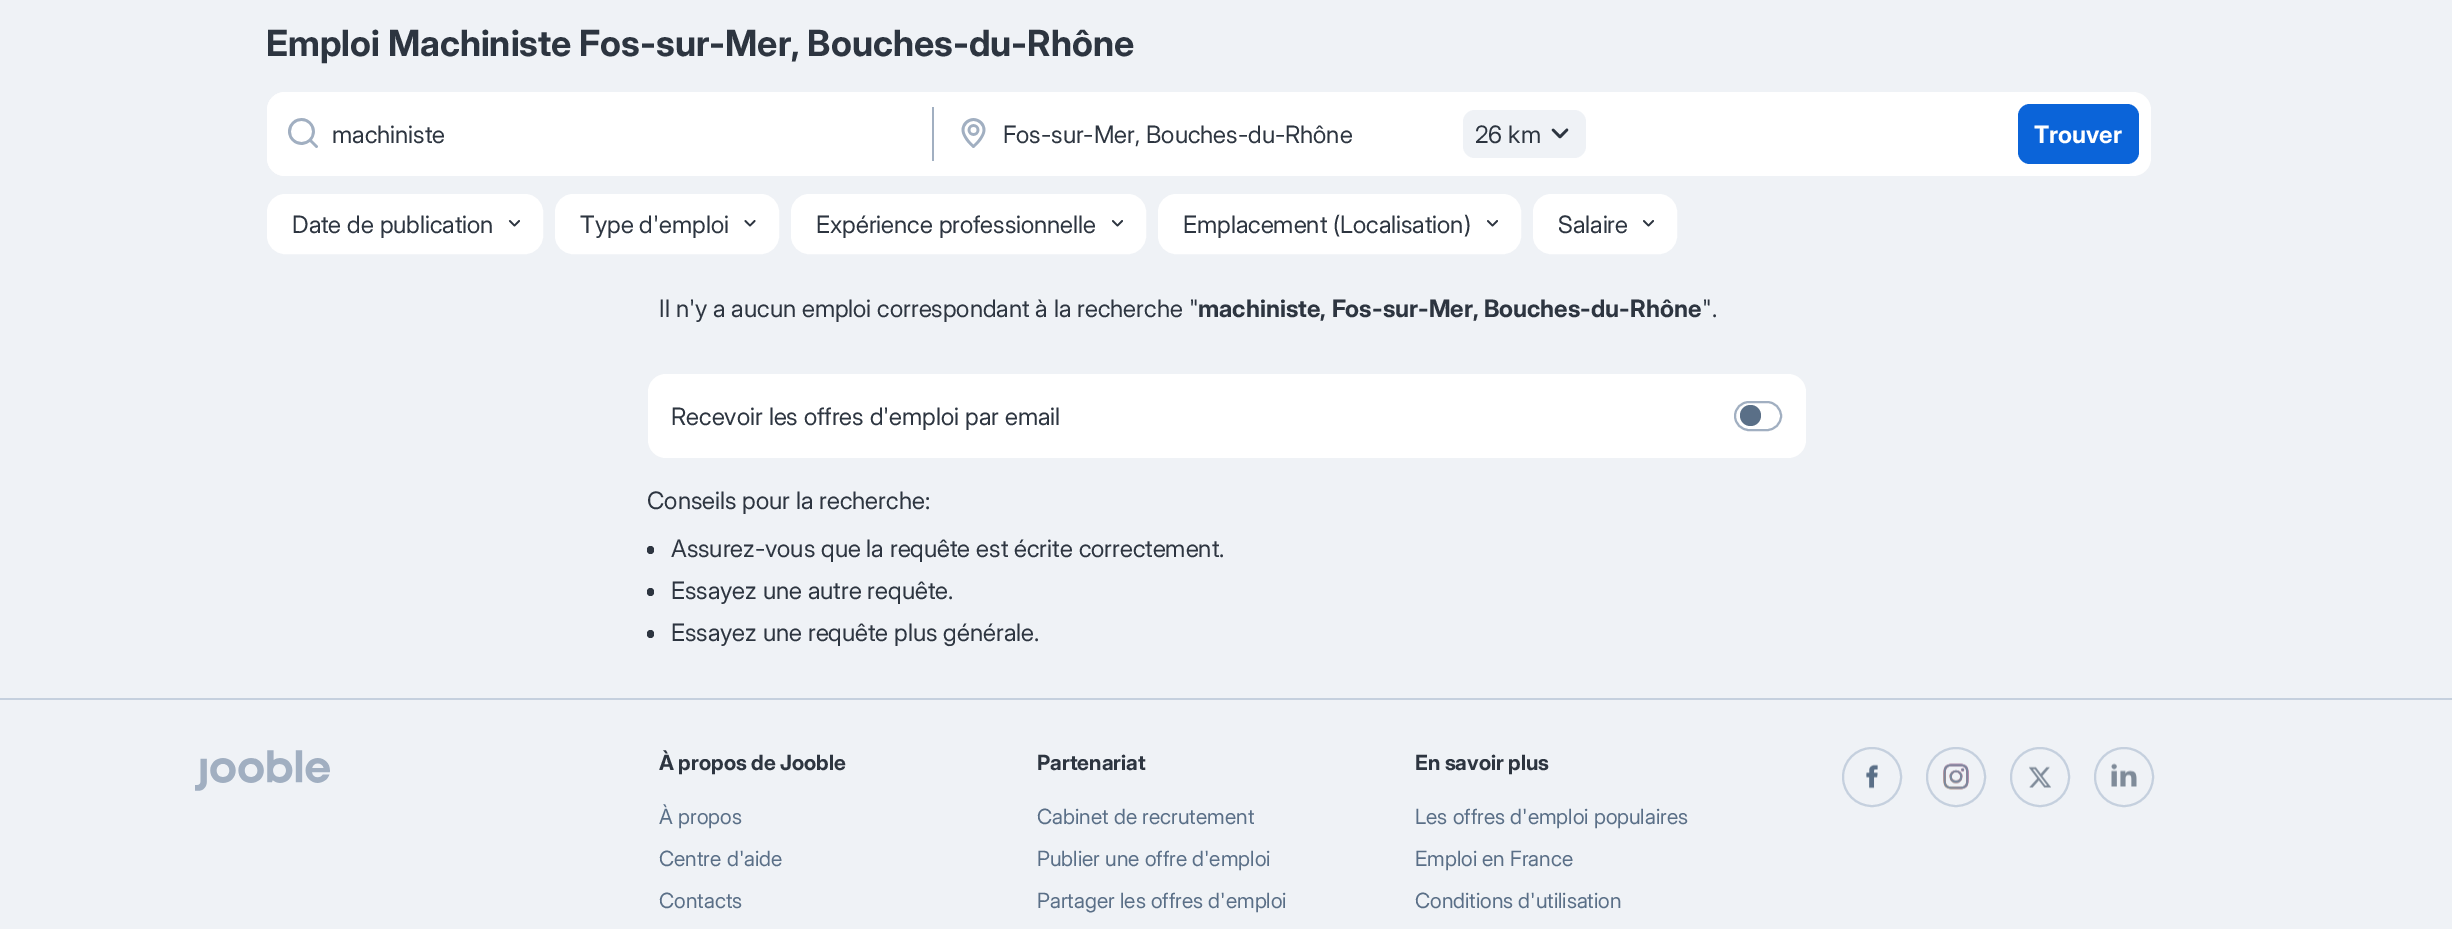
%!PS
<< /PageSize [2452 929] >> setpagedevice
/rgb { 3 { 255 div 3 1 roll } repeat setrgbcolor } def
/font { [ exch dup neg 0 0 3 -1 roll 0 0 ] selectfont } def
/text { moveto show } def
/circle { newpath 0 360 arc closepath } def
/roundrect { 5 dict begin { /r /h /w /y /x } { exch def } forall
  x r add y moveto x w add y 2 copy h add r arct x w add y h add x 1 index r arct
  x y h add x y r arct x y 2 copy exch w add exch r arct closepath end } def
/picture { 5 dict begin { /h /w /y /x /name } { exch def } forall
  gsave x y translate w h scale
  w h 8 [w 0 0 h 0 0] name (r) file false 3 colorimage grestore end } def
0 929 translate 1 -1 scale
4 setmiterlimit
239 242 246 rgb
0 0 2452 929 rectfill
255 255 255 rgb
267 92 1884 84 18 roundrect fill
285 92 moveto 648 0 rlineto 0 84 rlineto -648 0 rlineto -10 0 -18 -8 -18 -18 rcurveto 0 -48 rlineto 0 -10 8 -18 18 -18 rcurveto closepath fill
(img_01.rgb) 288 118 30 30 picture
161 175 193 rgb
932 107 2 54 rectfill
(img_02.rgb) 961 118 25 30 picture
239 242 246 rgb
1463 110 123 48 12 roundrect fill
(img_03.rgb) 1551 128 18 11 picture
11 100 217 rgb
2018 104 121 60 12 roundrect fill
255 255 255 rgb
268 195 274 58 17 roundrect gsave fill grestore
2 setlinewidth
stroke
(img_04.rgb) 508 220 12 7 picture
556 195 222 58 17 roundrect gsave fill grestore
stroke
(img_05.rgb) 744 220 12 7 picture
792 195 353 58 17 roundrect gsave fill grestore
stroke
(img_06.rgb) 1112 220 11 7 picture
1159 195 361 58 17 roundrect gsave fill grestore
stroke
(img_06.rgb) 1487 220 11 7 picture
1534 195 142 58 17 roundrect gsave fill grestore
stroke
(img_06.rgb) 1643 220 11 7 picture
648 374 1158 84 18 roundrect fill
161 175 193 rgb
1735 402 46 28 14 roundrect stroke
90 111 135 rgb
1750.5 415.5 10.5 circle fill
45 53 64 rgb
647 546 7 8 3.5 roundrect fill
647 588 7 8 3.5 roundrect fill
647 630 7 8 3.5 roundrect fill
197 208 222 rgb
0 698 2452 2 rectfill
(img_07.rgb) 195 750 135 41 picture
1872 777 29 circle stroke
(img_08.rgb) 1866 764 12 25 picture
1956 777 29 circle stroke
(img_09.rgb) 1943 763 26 27 picture
2040 777 29 circle stroke
(img_10.rgb) 2029 766 22 22 picture
2124 777 29 circle stroke
(img_11.rgb) 2111 763 26 24 picture
/InterDisplay-Bold 36 font
45 53 64 rgb
(Emploi Machiniste Fos-sur-Mer, Bouches-du-Rhône) 266 56 text
/InterDisplay-Regular 24 font
(machiniste) 332 143 text
(Fos-sur-Mer, Bouches-du-Rhône) 1003 143 text
(26 km) 1475 143 text
/InterDisplay-Bold 24 font
255 255 255 rgb
(Trouver) 2034 143 text
/InterDisplay-Regular 24 font
45 53 64 rgb
(Date de publication) 292 233 text
(Type d'emploi) 580 233 text
(Expérience professionnelle) 816 233 text
(Emplacement \(Localisation\)) 1183 233 text
(Salaire) 1558 233 text
(Il n'y a aucun emploi correspondant à la recherche ") 659 317 text
/InterDisplay-Bold 24 font
(machiniste, Fos-sur-Mer, Bouches-du-Rhône) 1198 317 text
/InterDisplay-Regular 24 font
(".) 1702 317 text
(Recevoir les offres d'emploi par email) 671 425 text
(Conseils pour la recherche:) 647 509 text
(Assurez-vous que la requête est écrite correctement.) 671 557 text
(Essayez une autre requête.) 671 599 text
(Essayez une requête plus générale.) 671 641 text
/InterDisplay-Bold 21 font
(À propos de Jooble) 659 770 text
/InterDisplay-Regular 21 font
90 111 135 rgb
(À propos) 659 824 text
(Centre d'aide) 659 866 text
(Contacts) 659 908 text
/InterDisplay-Bold 21 font
45 53 64 rgb
(Partenariat) 1037 770 text
/InterDisplay-Regular 21 font
90 111 135 rgb
(Сabinet de recrutement) 1037 824 text
(Publier une offre d'emploi) 1037 866 text
(Partager les offres d'emploi) 1037 908 text
/InterDisplay-Bold 21 font
45 53 64 rgb
(En savoir plus) 1415 770 text
/InterDisplay-Regular 21 font
90 111 135 rgb
(Les offres d'emploi populaires) 1415 824 text
(Emploi en France) 1415 866 text
(Conditions d'utilisation) 1415 908 text
showpage
